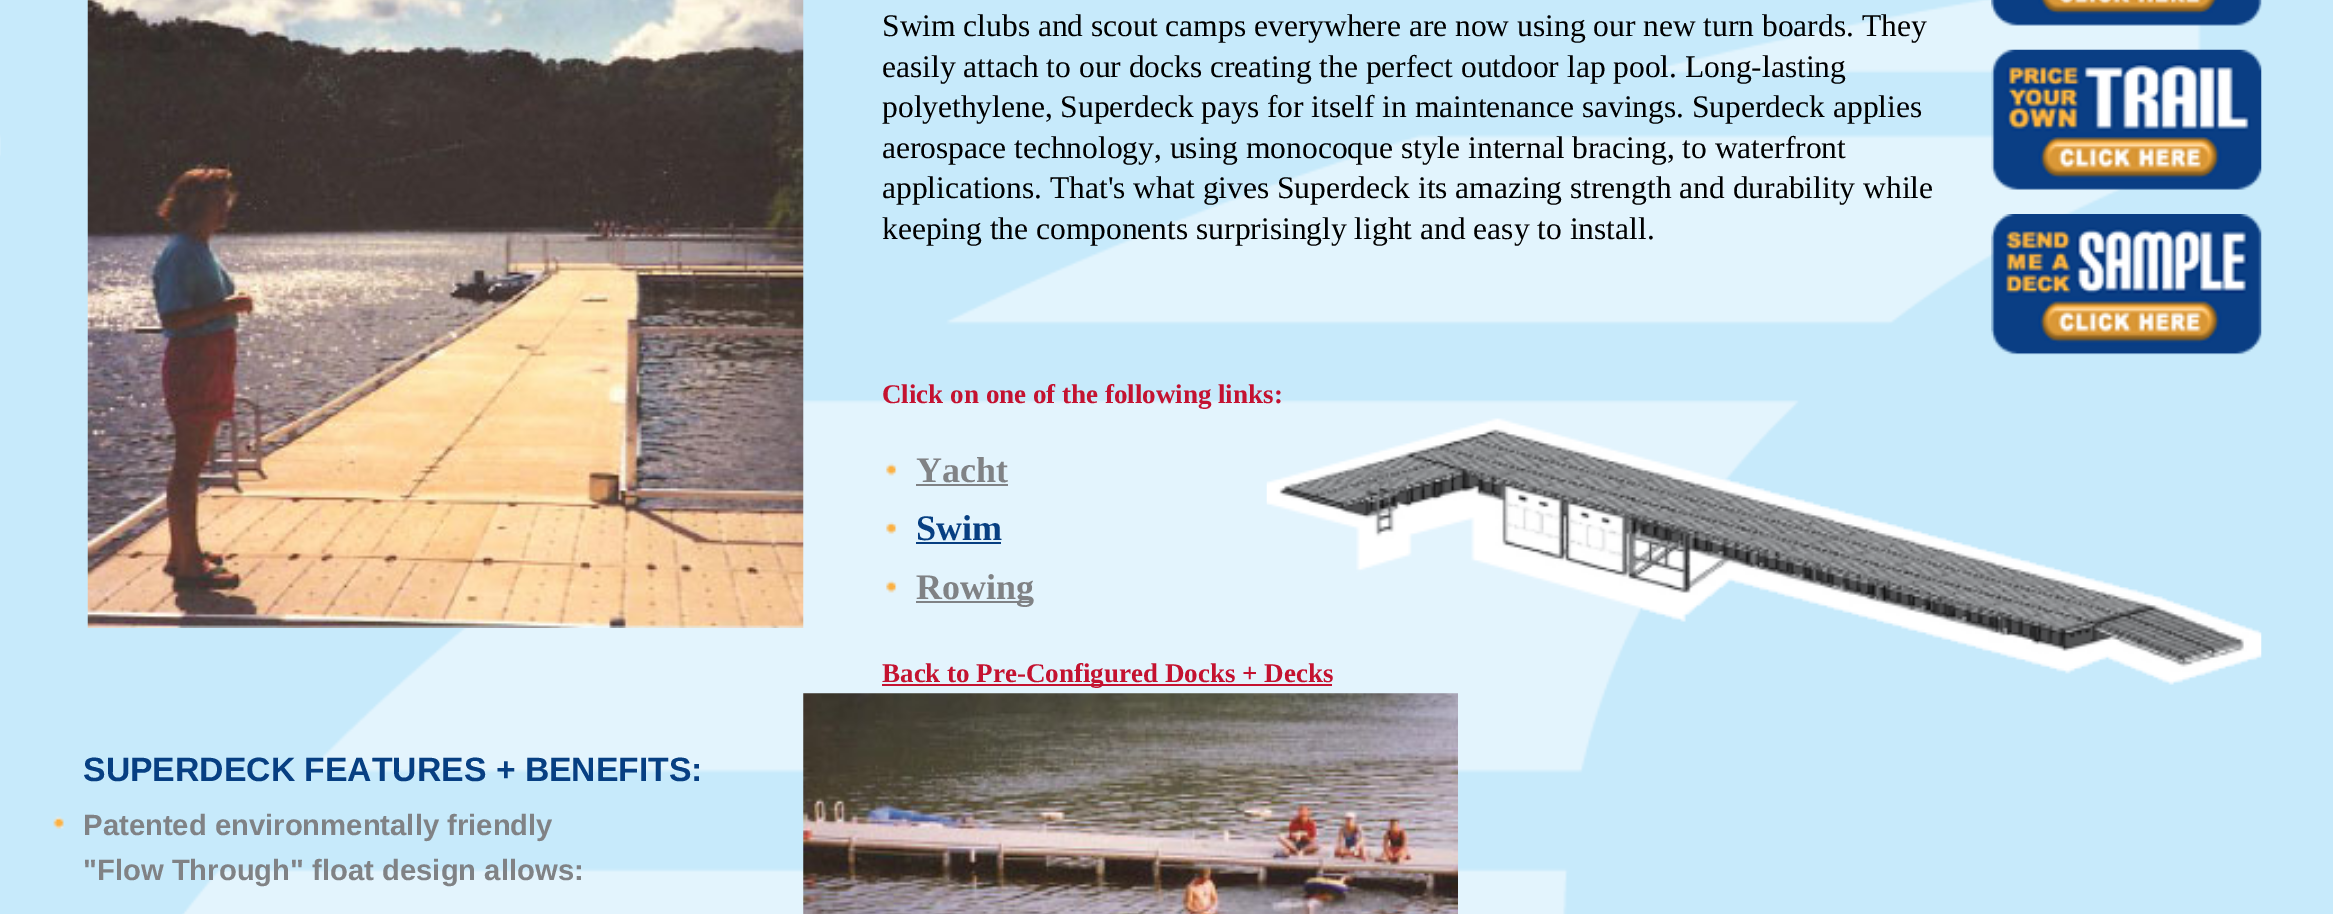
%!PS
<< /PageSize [2333 914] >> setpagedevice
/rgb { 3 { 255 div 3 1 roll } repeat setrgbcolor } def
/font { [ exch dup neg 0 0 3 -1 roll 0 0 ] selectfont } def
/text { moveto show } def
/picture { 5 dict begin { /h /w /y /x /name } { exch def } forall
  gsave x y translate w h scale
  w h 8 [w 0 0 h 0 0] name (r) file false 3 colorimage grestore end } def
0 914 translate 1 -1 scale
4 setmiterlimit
199 234 251 rgb
0 0 2333 914 rectfill
(img_01.rgb) 0 0 2203 914 picture
(img_02.rgb) 87 0 717 628 picture
(img_03.rgb) 1991 0 271 26 picture
(img_04.rgb) 1991 49 271 141 picture
(img_05.rgb) 1991 214 271 141 picture
(img_06.rgb) 1266 418 996 267 picture
(img_07.rgb) 886 463 11 13 picture
128 130 133 rgb
916 484 92 2 rectfill
(img_08.rgb) 886 522 11 13 picture
7 63 130 rgb
916 542 85 2 rectfill
(img_07.rgb) 886 580 11 13 picture
128 130 133 rgb
916 601 117 2 rectfill
196 18 48 rgb
882 684 450 2 rectfill
(img_09.rgb) 53 816 11 13 picture
(img_10.rgb) 803 693 655 221 picture
/LiberationSerif-Regular 31.5 font
0 0 0 rgb
(Swim clubs and scout camps everywhere are now using our new turn boards. They) 882 36 text
(easily attach to our docks creating the perfect outdoor lap pool. Long-lasting) 882 77 text
(polyethylene, Superdeck pays for itself in maintenance savings. Superdeck applies) 882 117 text
(aerospace technology, using monocoque style internal bracing, to waterfront) 882 158 text
(applications. That's what gives Superdeck its amazing strength and durability while) 882 198 text
(keeping the components surprisingly light and easy to install.) 882 239 text
/LiberationSerif-Bold 27 font
196 18 48 rgb
(Click on one of the following links:) 882 403 text
/LiberationSerif-Bold 36 font
128 130 133 rgb
(Yacht) 916 482 text
7 63 130 rgb
(Swim) 916 540 text
128 130 133 rgb
(Rowing) 916 599 text
/LiberationSerif-Bold 27 font
196 18 48 rgb
(Back to Pre-Configured Docks + Decks) 882 682 text
/LiberationSans-Bold 33.75 font
7 63 130 rgb
(SUPERDECK FEATURES + BENEFITS:) 83 781 text
/LiberationSans-Bold 29.25 font
128 130 133 rgb
(Patented environmentally friendly) 83 835 text
("Flow Through" float design allows:) 83 880 text
showpage
